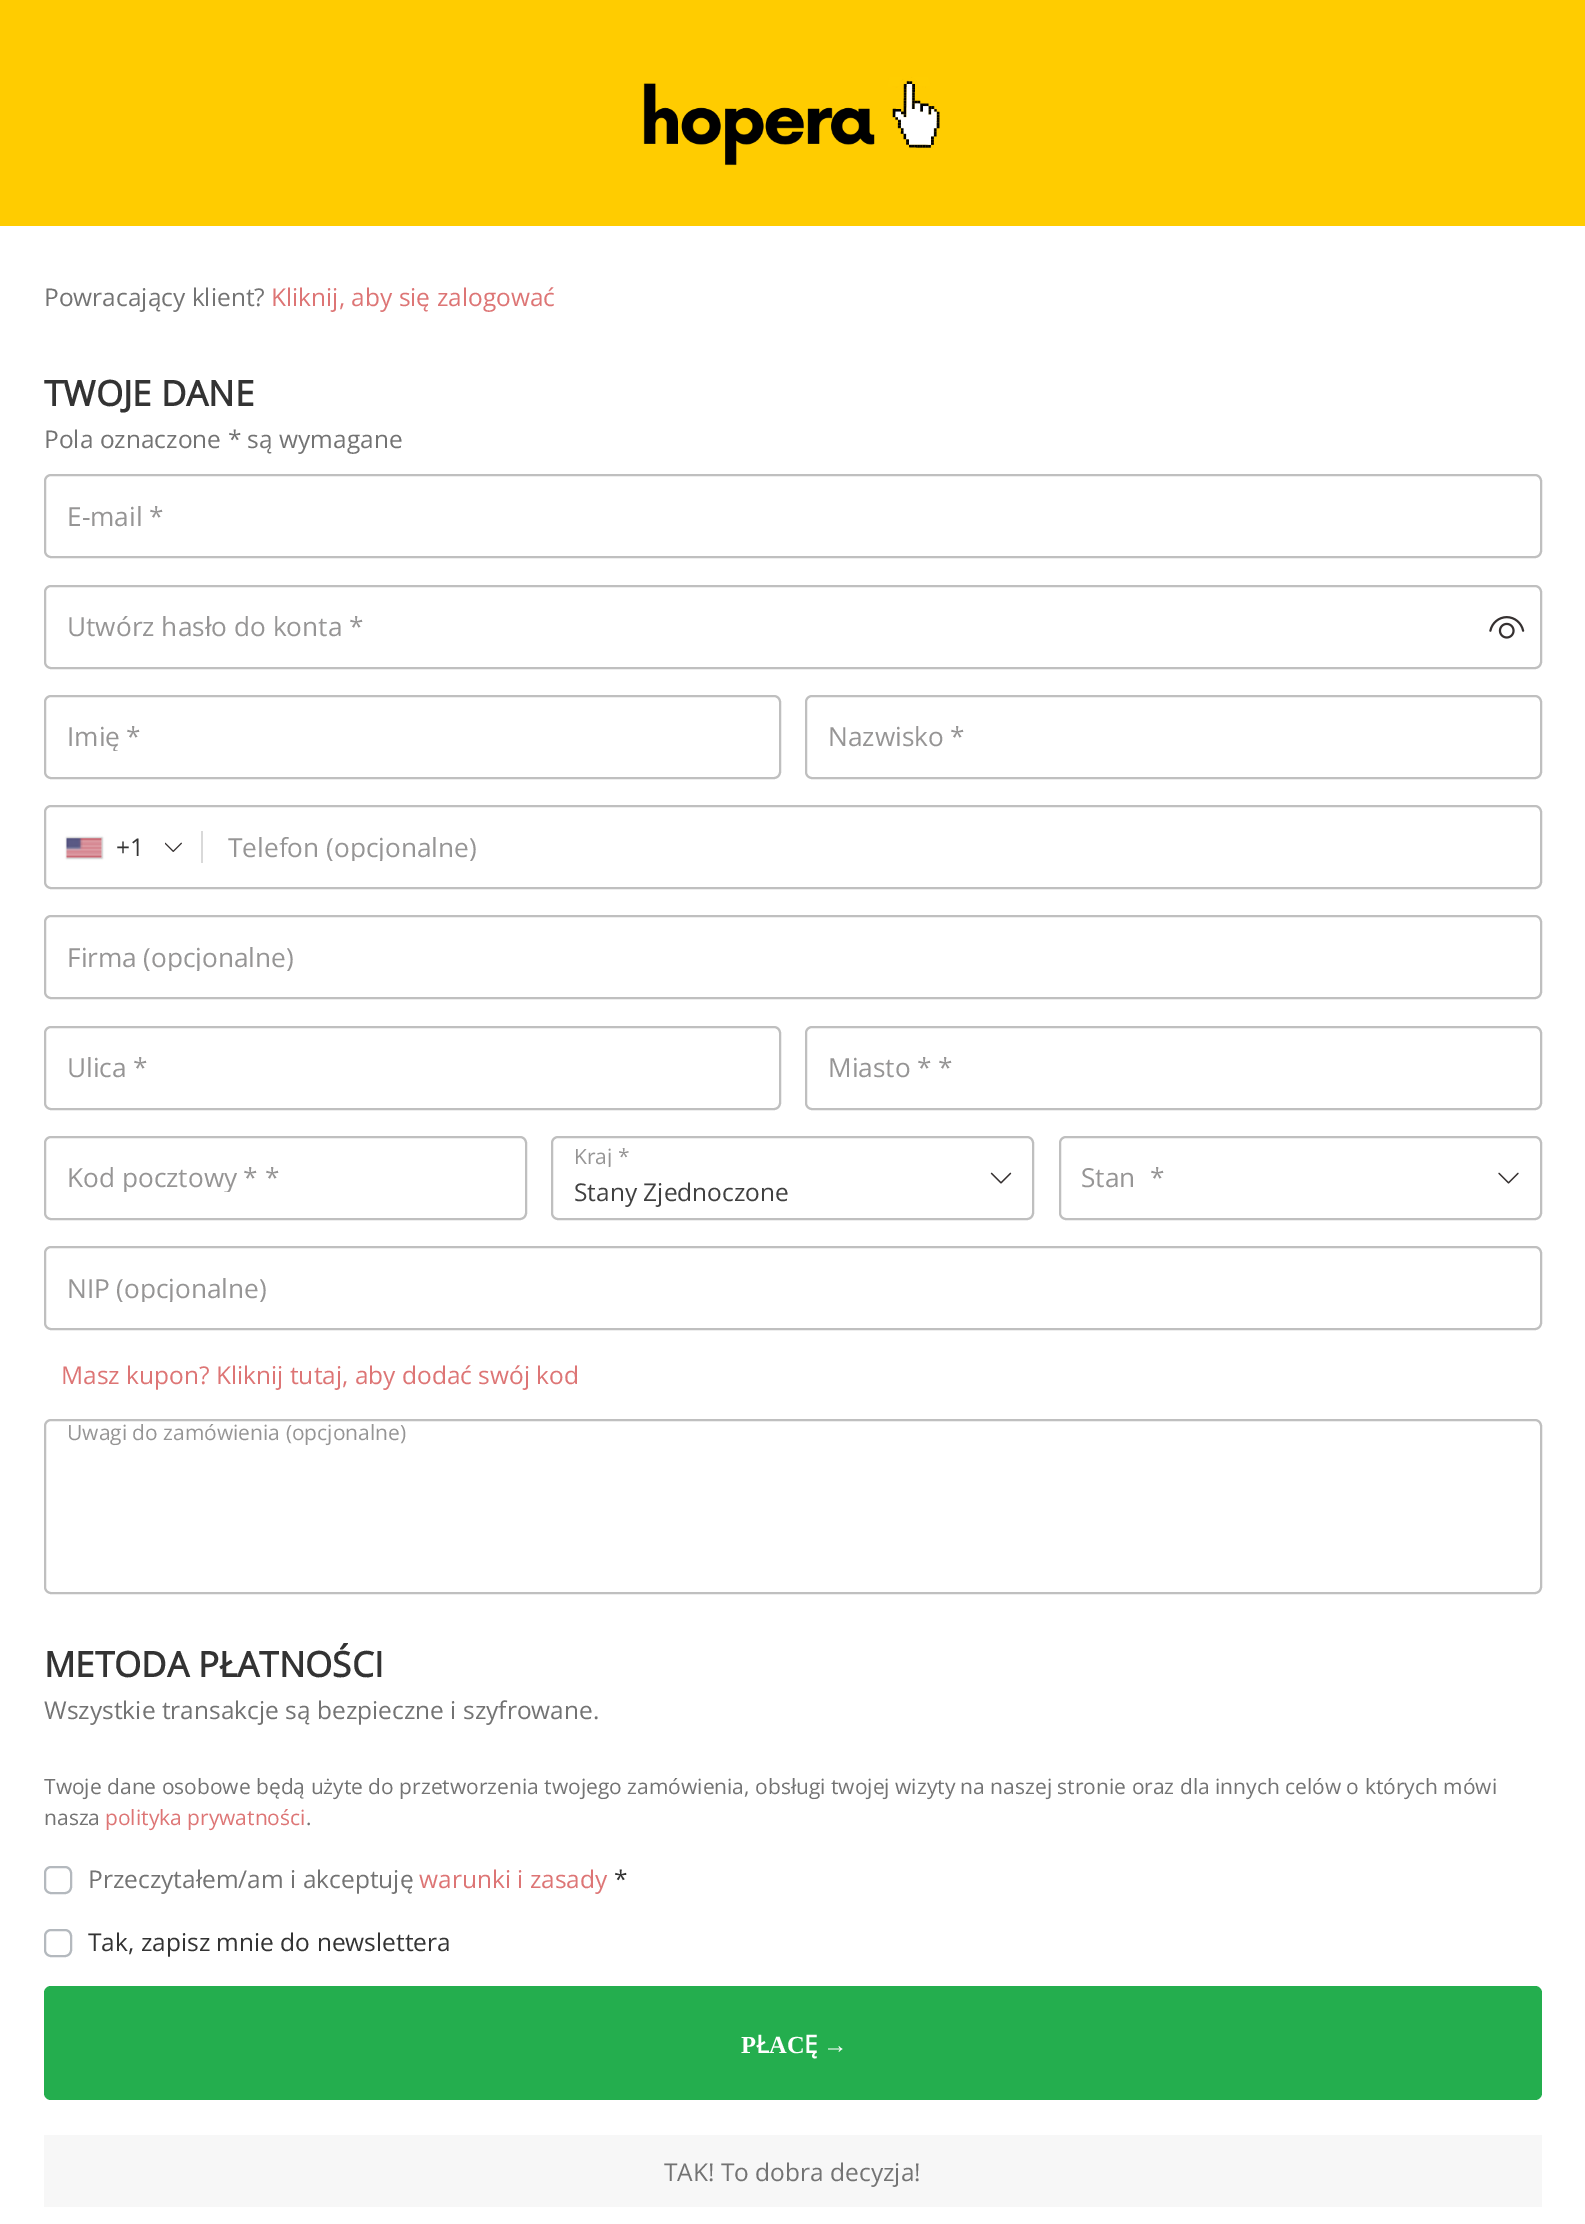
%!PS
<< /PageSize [1585 2224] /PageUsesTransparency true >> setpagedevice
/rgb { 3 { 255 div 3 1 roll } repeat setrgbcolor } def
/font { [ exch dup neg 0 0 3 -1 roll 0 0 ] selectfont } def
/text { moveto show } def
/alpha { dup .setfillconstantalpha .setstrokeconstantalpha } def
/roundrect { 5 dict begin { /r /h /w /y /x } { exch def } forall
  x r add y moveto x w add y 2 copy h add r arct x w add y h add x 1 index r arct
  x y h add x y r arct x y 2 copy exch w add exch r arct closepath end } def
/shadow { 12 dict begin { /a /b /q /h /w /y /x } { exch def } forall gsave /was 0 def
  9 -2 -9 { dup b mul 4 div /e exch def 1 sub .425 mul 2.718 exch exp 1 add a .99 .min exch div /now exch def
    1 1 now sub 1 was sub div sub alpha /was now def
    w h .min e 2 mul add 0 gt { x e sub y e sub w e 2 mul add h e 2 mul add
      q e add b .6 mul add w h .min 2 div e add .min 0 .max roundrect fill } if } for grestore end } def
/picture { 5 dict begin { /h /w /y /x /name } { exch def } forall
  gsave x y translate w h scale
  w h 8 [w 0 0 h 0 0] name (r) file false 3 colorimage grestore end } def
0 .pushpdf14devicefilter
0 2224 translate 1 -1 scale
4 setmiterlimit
255 255 255 rgb
0 0 1585 2224 rectfill
255 204 0 rgb
0 0 1585 226 rectfill
(img_01.rgb) 643 77 297 89 picture
191 191 191 rgb
2 setlinewidth
45 475 1496 82 6 roundrect stroke
45 586 1496 82 6 roundrect stroke
(img_02.rgb) 1489 616 36 23 picture
45 696 735 82 6 roundrect stroke
806 696 735 82 6 roundrect stroke
45 806 1496 82 6 roundrect stroke
136 136 136 rgb
67 838 35 20 0 1 1 shadow
219 219 219 rgb
67 838 35 20 rectfill
(img_03.rgb) 66 838 36 20 picture
(img_04.rgb) 165 842 17 10 picture
217 217 217 rgb
201 831 2 32 rectfill
191 191 191 rgb
45 916 1496 82 6 roundrect stroke
45 1027 735 82 6 roundrect stroke
806 1027 735 82 6 roundrect stroke
45 1137 481 82 6 roundrect stroke
552 1137 481 82 6 roundrect stroke
(img_05.rgb) 990 1172 22 12 picture
1060 1137 481 82 6 roundrect stroke
(img_06.rgb) 1498 1172 21 12 picture
45 1247 1496 82 6 roundrect stroke
45 1420 1496 173 6 roundrect stroke
180 185 190 rgb
45 1867 26 26 6 roundrect stroke
45 1930 26 26 6 roundrect stroke
36 174 78 rgb
44 1986 1498 114 7 roundrect fill
247 247 247 rgb
44 2135 1498 72 rectfill
/OpenSans-Regular 24.5 font
115 115 115 rgb
(Powracający klient?) 44 306 text
221 117 117 rgb
(Kliknij, aby się zalogować) 271 306 text
/OpenSans-Bold 35 font
51 51 51 rgb
(TWOJE DANE) 44 406 text
/OpenSans-Regular 24.5 font
115 115 115 rgb
(Pola oznaczone * są wymagane) 44 448 text
/OpenSans-Regular 26.25 font
150 149 149 rgb
(E-mail) 67 526 text
(*) 149 526 text
(Utwórz hasło do konta) 67 636 text
(*) 349 636 text
gsave
67 725 673 26 rectclip
(Imię) 67 746 text
grestore
(*) 126 746 text
(Nazwisko) 828 746 text
(*) 950 746 text
/OpenSans-Regular 24.5 font
51 51 51 rgb
(+1) 116 856 text
/OpenSans-Regular 26.25 font
150 149 149 rgb
(Telefon) 228 857 text
gsave
228 835 1274 26 rectclip
(\(opcjonalne\)) 326 857 text
grestore
(Firma) 67 967 text
gsave
67 945 1435 26 rectclip
(\(opcjonalne\)) 143 967 text
grestore
(Ulica) 67 1077 text
(*) 133 1077 text
(Miasto) 828 1077 text
(*) 917 1077 text
(*) 938 1077 text
gsave
67 1166 434 26 rectclip
(Kod pocztowy) 67 1187 text
grestore
(*) 243 1187 text
(*) 265 1187 text
gsave
574 1146 355 21 rectclip
/OpenSans-Regular 21 font
(Kraj) 574 1164 text
grestore
/OpenSans-Regular 21 font
(*) 618 1164 text
/OpenSans-Regular 24.5 font
64 64 64 rgb
(Stany Zjednoczone) 574 1201 text
/OpenSans-Regular 26.25 font
150 149 149 rgb
(Stan) 1081 1187 text
(*) 1150 1187 text
(NIP) 67 1298 text
gsave
67 1276 1435 26 rectclip
(\(opcjonalne\)) 116 1298 text
grestore
/OpenSans-Regular 24.5 font
221 117 117 rgb
(Masz kupon? Kliknij tutaj, aby dodać swój kod) 61 1384 text
/OpenSans-Regular 21 font
150 149 149 rgb
(Uwagi do zamówienia \(opcjonalne\)) 67 1440 text
/OpenSans-Bold 35 font
51 51 51 rgb
(METODA PŁATNOŚCI) 44 1677 text
/OpenSans-Regular 24.5 font
115 115 115 rgb
(Wszystkie transakcje są bezpieczne i szyfrowane.) 44 1719 text
/OpenSans-Regular 21 font
(Twoje dane osobowe będą użyte do przetworzenia twojego zamówienia, obsługi twojej wizyty na naszej stronie oraz dla innych celów o których mówi) 44 1794 text
(nasza) 44 1825 text
221 117 117 rgb
(polityka prywatności) 105 1825 text
115 115 115 rgb
(.) 306 1825 text
/OpenSans-Regular 24.5 font
(Przeczytałem/am i akceptuję) 88 1888 text
221 117 117 rgb
(warunki i zasady) 419 1888 text
51 51 51 rgb
(*) 614 1888 text
(Tak, zapisz mnie do newslettera) 88 1951 text
/LiberationSerif-Bold 24.5 font
255 255 255 rgb
(P) 741 2053 text
/OpenSans-Bold 24.5 font
(Ł) 756 2053 text
/LiberationSerif-Bold 24.5 font
(AC) 769 2053 text
/OpenSans-Bold 24.5 font
(Ę) 804 2053 text
/LiberationSerif-Bold 24.5 font
(→) 823 2053 text
/OpenSans-Regular 24.5 font
115 115 115 rgb
(TAK! To dobra decyzja!) 664 2181 text
.poppdf14devicefilter showpage
